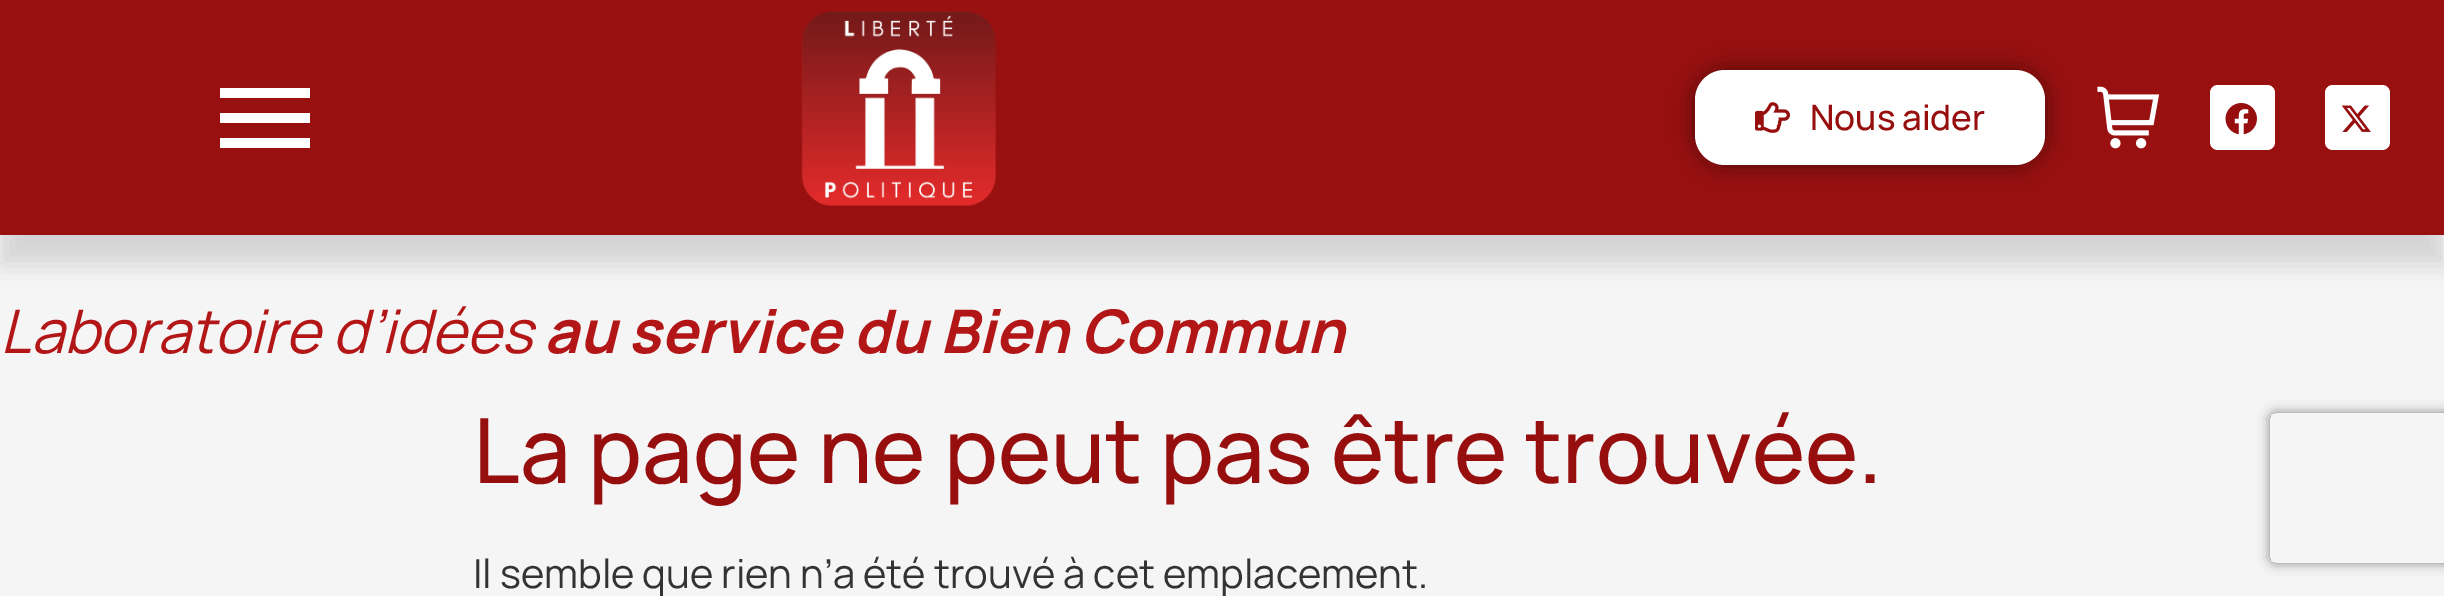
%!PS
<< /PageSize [2444 596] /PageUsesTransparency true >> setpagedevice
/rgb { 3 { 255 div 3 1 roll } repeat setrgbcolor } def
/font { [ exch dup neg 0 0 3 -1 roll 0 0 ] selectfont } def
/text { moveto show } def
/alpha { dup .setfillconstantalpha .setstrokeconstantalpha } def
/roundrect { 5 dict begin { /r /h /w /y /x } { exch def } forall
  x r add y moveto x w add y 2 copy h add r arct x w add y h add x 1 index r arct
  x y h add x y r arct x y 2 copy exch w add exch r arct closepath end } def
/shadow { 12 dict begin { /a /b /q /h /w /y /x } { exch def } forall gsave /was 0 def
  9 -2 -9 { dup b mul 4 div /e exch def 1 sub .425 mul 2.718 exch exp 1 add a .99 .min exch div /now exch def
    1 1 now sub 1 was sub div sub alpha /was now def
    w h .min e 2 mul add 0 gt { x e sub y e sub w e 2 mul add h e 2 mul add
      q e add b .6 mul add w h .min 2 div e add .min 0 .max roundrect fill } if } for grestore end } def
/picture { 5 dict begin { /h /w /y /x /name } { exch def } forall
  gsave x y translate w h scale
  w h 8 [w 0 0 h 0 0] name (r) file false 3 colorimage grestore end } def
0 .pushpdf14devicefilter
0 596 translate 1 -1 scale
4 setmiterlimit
245 245 245 rgb
0 0 2444 596 rectfill
0 0 0 rgb
0 30 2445 235 0 12.5 0.14 shadow
153 16 16 rgb
0 0 2444 235 rectfill
255 255 255 rgb
220 88 90 10 rectfill
220 113 90 10 rectfill
220 138 90 10 rectfill
(img_01.rgb) 801 11 195 195 picture
0 0 0 rgb
1695 70 350 95 30 12.5 0.5 shadow
255 255 255 rgb
1695 70 350 95 30 roundrect fill
(img_02.rgb) 1755 102 35 31 picture
(img_03.rgb) 2097 86 63 63 picture
2210 85 65 65 8 roundrect fill
(img_04.rgb) 2225 103 32 32 picture
2325 85 65 65 8 roundrect fill
(img_05.rgb) 2341 105 30 27 picture
gsave
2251 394 moveto 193 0 rlineto 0 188 rlineto -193 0 rlineto closepath 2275 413 moveto 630 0 rlineto 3 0 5 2 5 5 rcurveto 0 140 rlineto 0 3 -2 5 -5 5 rcurveto -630 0 rlineto -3 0 -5 -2 -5 -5 rcurveto 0 -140 rlineto 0 -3 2 -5 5 -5 rcurveto closepath eoclip newpath
128 128 128 rgb
2270 413 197 150 5 6 1 shadow
grestore
/Manrope-Medium 35 font
151 14 14 rgb
(Nous aider) 1810 130 text
/Manrope-Italic 60 font
179 22 22 rgb
(Laboratoire d’idées) 0 353 text
/Manrope-BoldItalic 60 font
(au service du Bien Commun) 544 353 text
/Manrope-Medium 90 font
151 14 14 rgb
(La page ne peut pas être trouvée.) 473 483 text
/Manrope-Regular 40 font
51 51 51 rgb
(Il semble que rien n’a été trouvé à cet emplacement.) 473 588 text
.poppdf14devicefilter showpage
